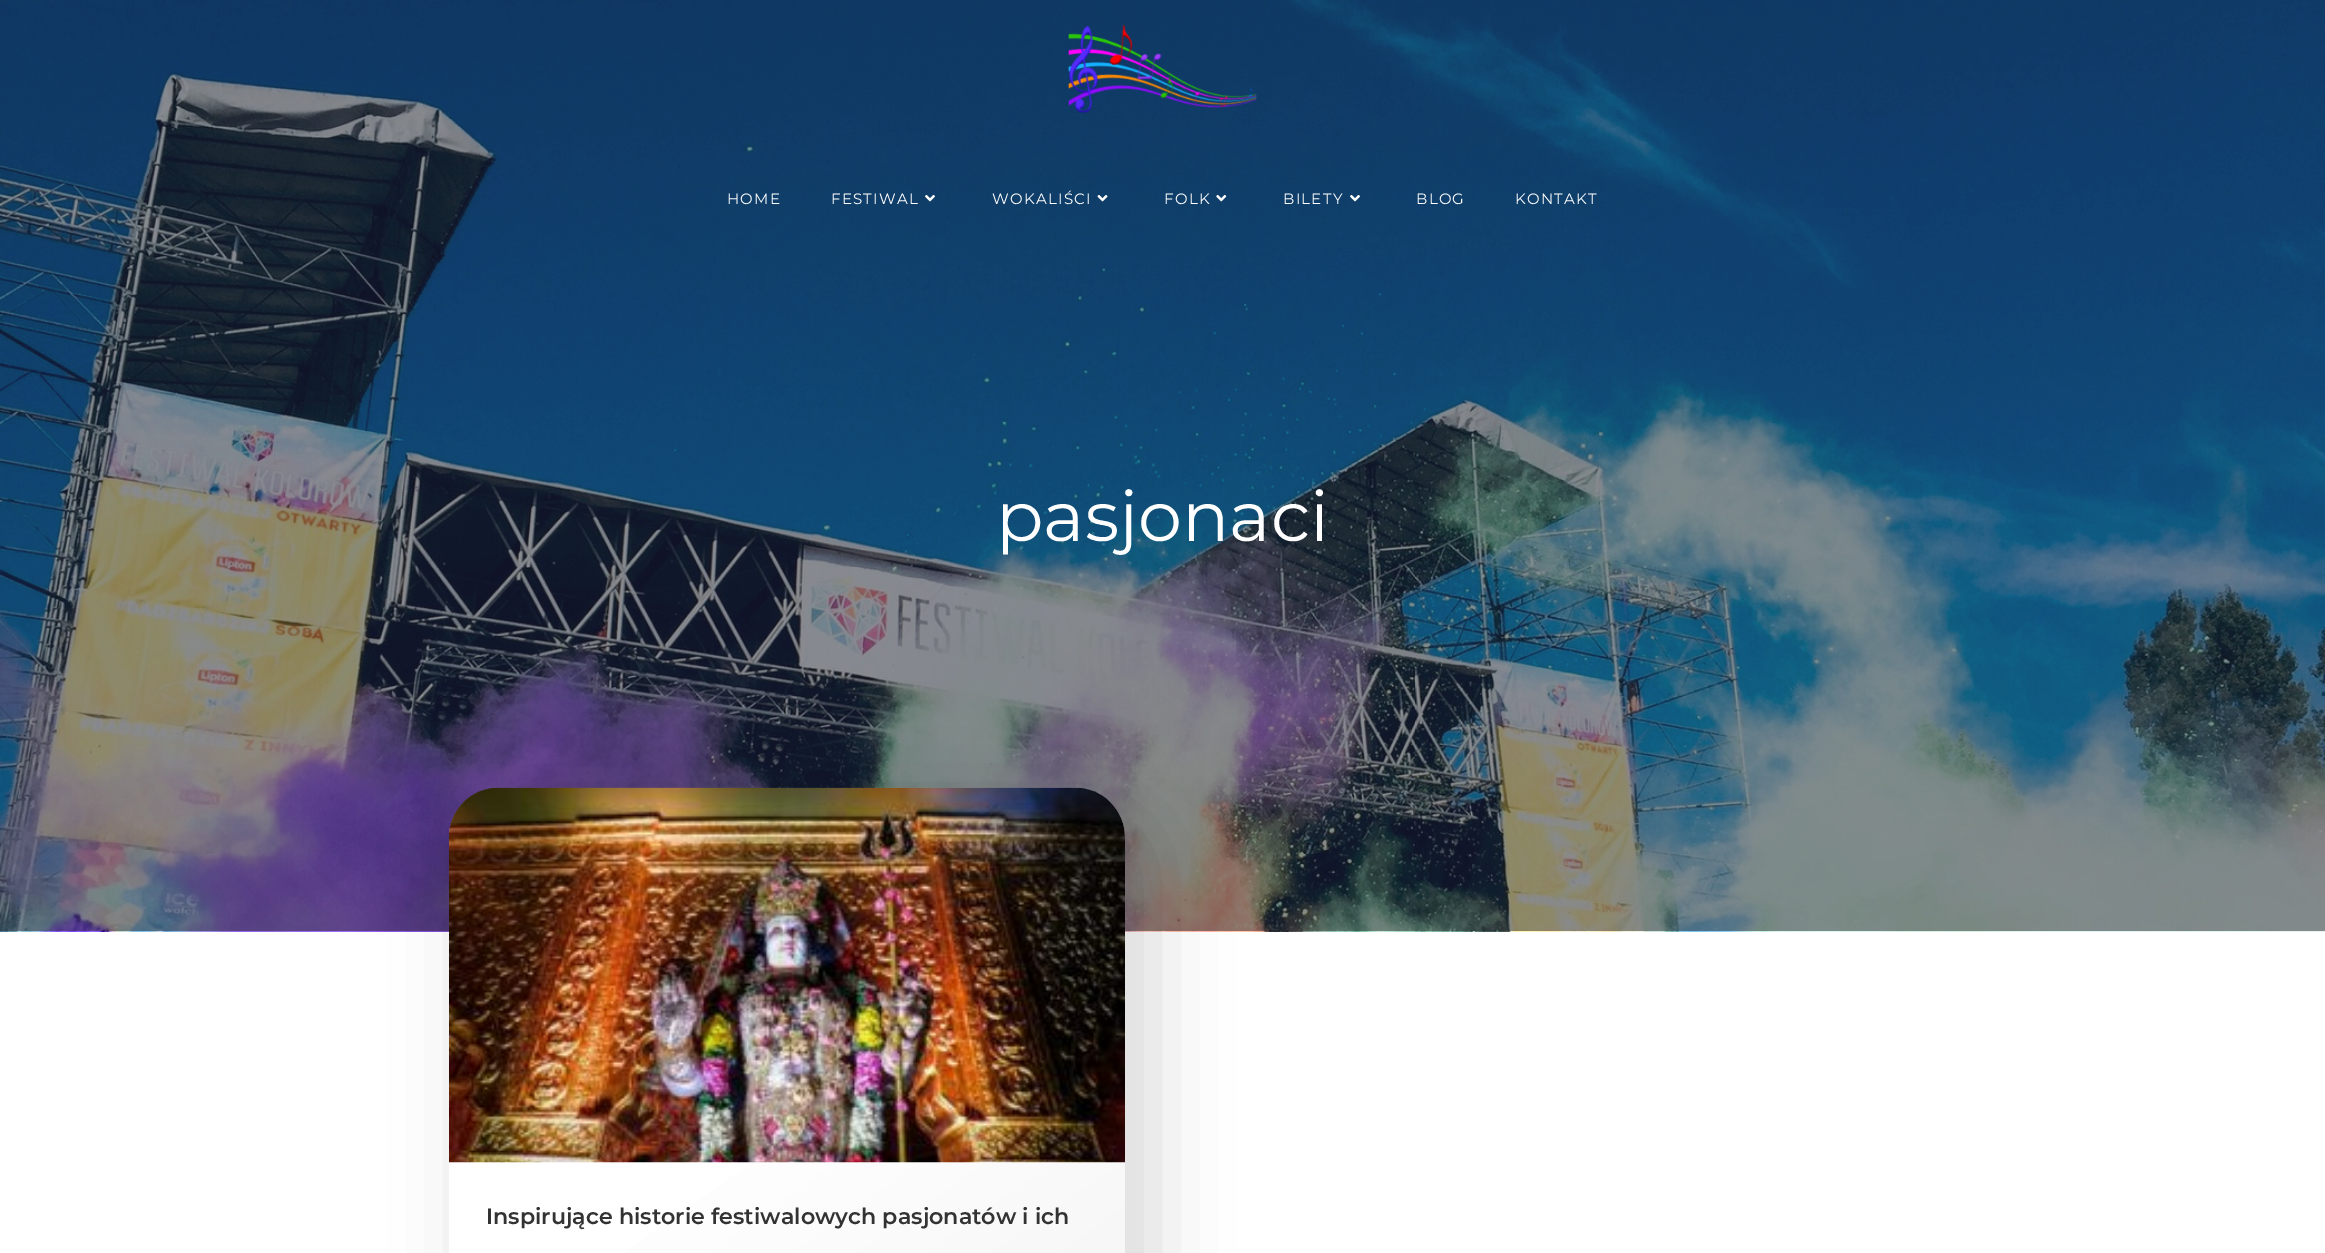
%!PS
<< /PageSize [2325 1253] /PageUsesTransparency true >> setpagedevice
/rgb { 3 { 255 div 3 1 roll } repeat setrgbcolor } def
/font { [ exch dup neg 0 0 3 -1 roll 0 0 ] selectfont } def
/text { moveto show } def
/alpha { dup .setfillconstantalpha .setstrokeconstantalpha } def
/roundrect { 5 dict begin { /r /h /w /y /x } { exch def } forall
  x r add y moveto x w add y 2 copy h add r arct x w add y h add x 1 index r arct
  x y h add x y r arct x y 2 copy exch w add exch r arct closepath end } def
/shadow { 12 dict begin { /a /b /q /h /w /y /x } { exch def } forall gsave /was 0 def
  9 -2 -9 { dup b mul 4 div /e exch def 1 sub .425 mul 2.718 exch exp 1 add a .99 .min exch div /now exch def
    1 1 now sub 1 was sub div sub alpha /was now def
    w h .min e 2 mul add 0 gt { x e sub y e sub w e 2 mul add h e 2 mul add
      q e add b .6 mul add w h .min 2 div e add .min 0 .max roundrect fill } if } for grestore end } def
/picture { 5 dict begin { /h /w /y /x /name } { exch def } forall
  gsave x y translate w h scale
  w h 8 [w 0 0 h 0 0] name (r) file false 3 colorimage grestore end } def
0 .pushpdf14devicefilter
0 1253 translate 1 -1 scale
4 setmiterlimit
255 255 255 rgb
0 0 2325 1253 rectfill
(img_06.rgb) 0 0 2325 932 picture
(img_01.rgb) 1068 25 189 88 picture
(img_02.rgb) 925 194 10 8 picture
(img_03.rgb) 1097 195 11 7 picture
(img_04.rgb) 1216 194 11 8 picture
(img_05.rgb) 1350 194 10 8 picture
0 0 0 rgb
471 810 682 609 53 37.5 0.15 shadow
gsave 449 788 676 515 50 roundrect clip newpath
<< /ShadingType 2 /ColorSpace /DeviceRGB /Coords [477 768 1097 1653] /Extend [true true] /Function << /FunctionType 3 /Domain [0 1] /Functions [<< /FunctionType 2 /Domain [0 1] /C0 [1 1 1] /C1 [1 1 1] /N 1 >> << /FunctionType 2 /Domain [0 1] /C0 [1 1 1] /C1 [0.937 0.937 0.937] /N 1 >>] /Bounds [0.42] /Encode [0 1 0 1] >> >> shfill grestore
(img_07.rgb) 449 787 676 376 picture
/Montserrat-Regular 15 font
255 255 255 rgb
727 204 moveto 1.25 0 (HOME) ashow
831 204 moveto 1.25 0 (FESTIWAL) ashow
992 204 moveto 1.25 0 (WOKALIŚCI) ashow
1164 204 moveto 1.25 0 (FOLK) ashow
1283 204 moveto 1.25 0 (BILETY) ashow
1416 204 moveto 1.25 0 (BLOG) ashow
1515 204 moveto 1.25 0 (KONTAKT) ashow
/Montserrat-Regular 70 font
(pasjonaci) 996 541 text
/Montserrat-SemiBold 22.2 font
51 51 51 rgb
(Inspirujące historie festiwalowych pasjonatów i ich) 486 1224 text
.poppdf14devicefilter showpage
